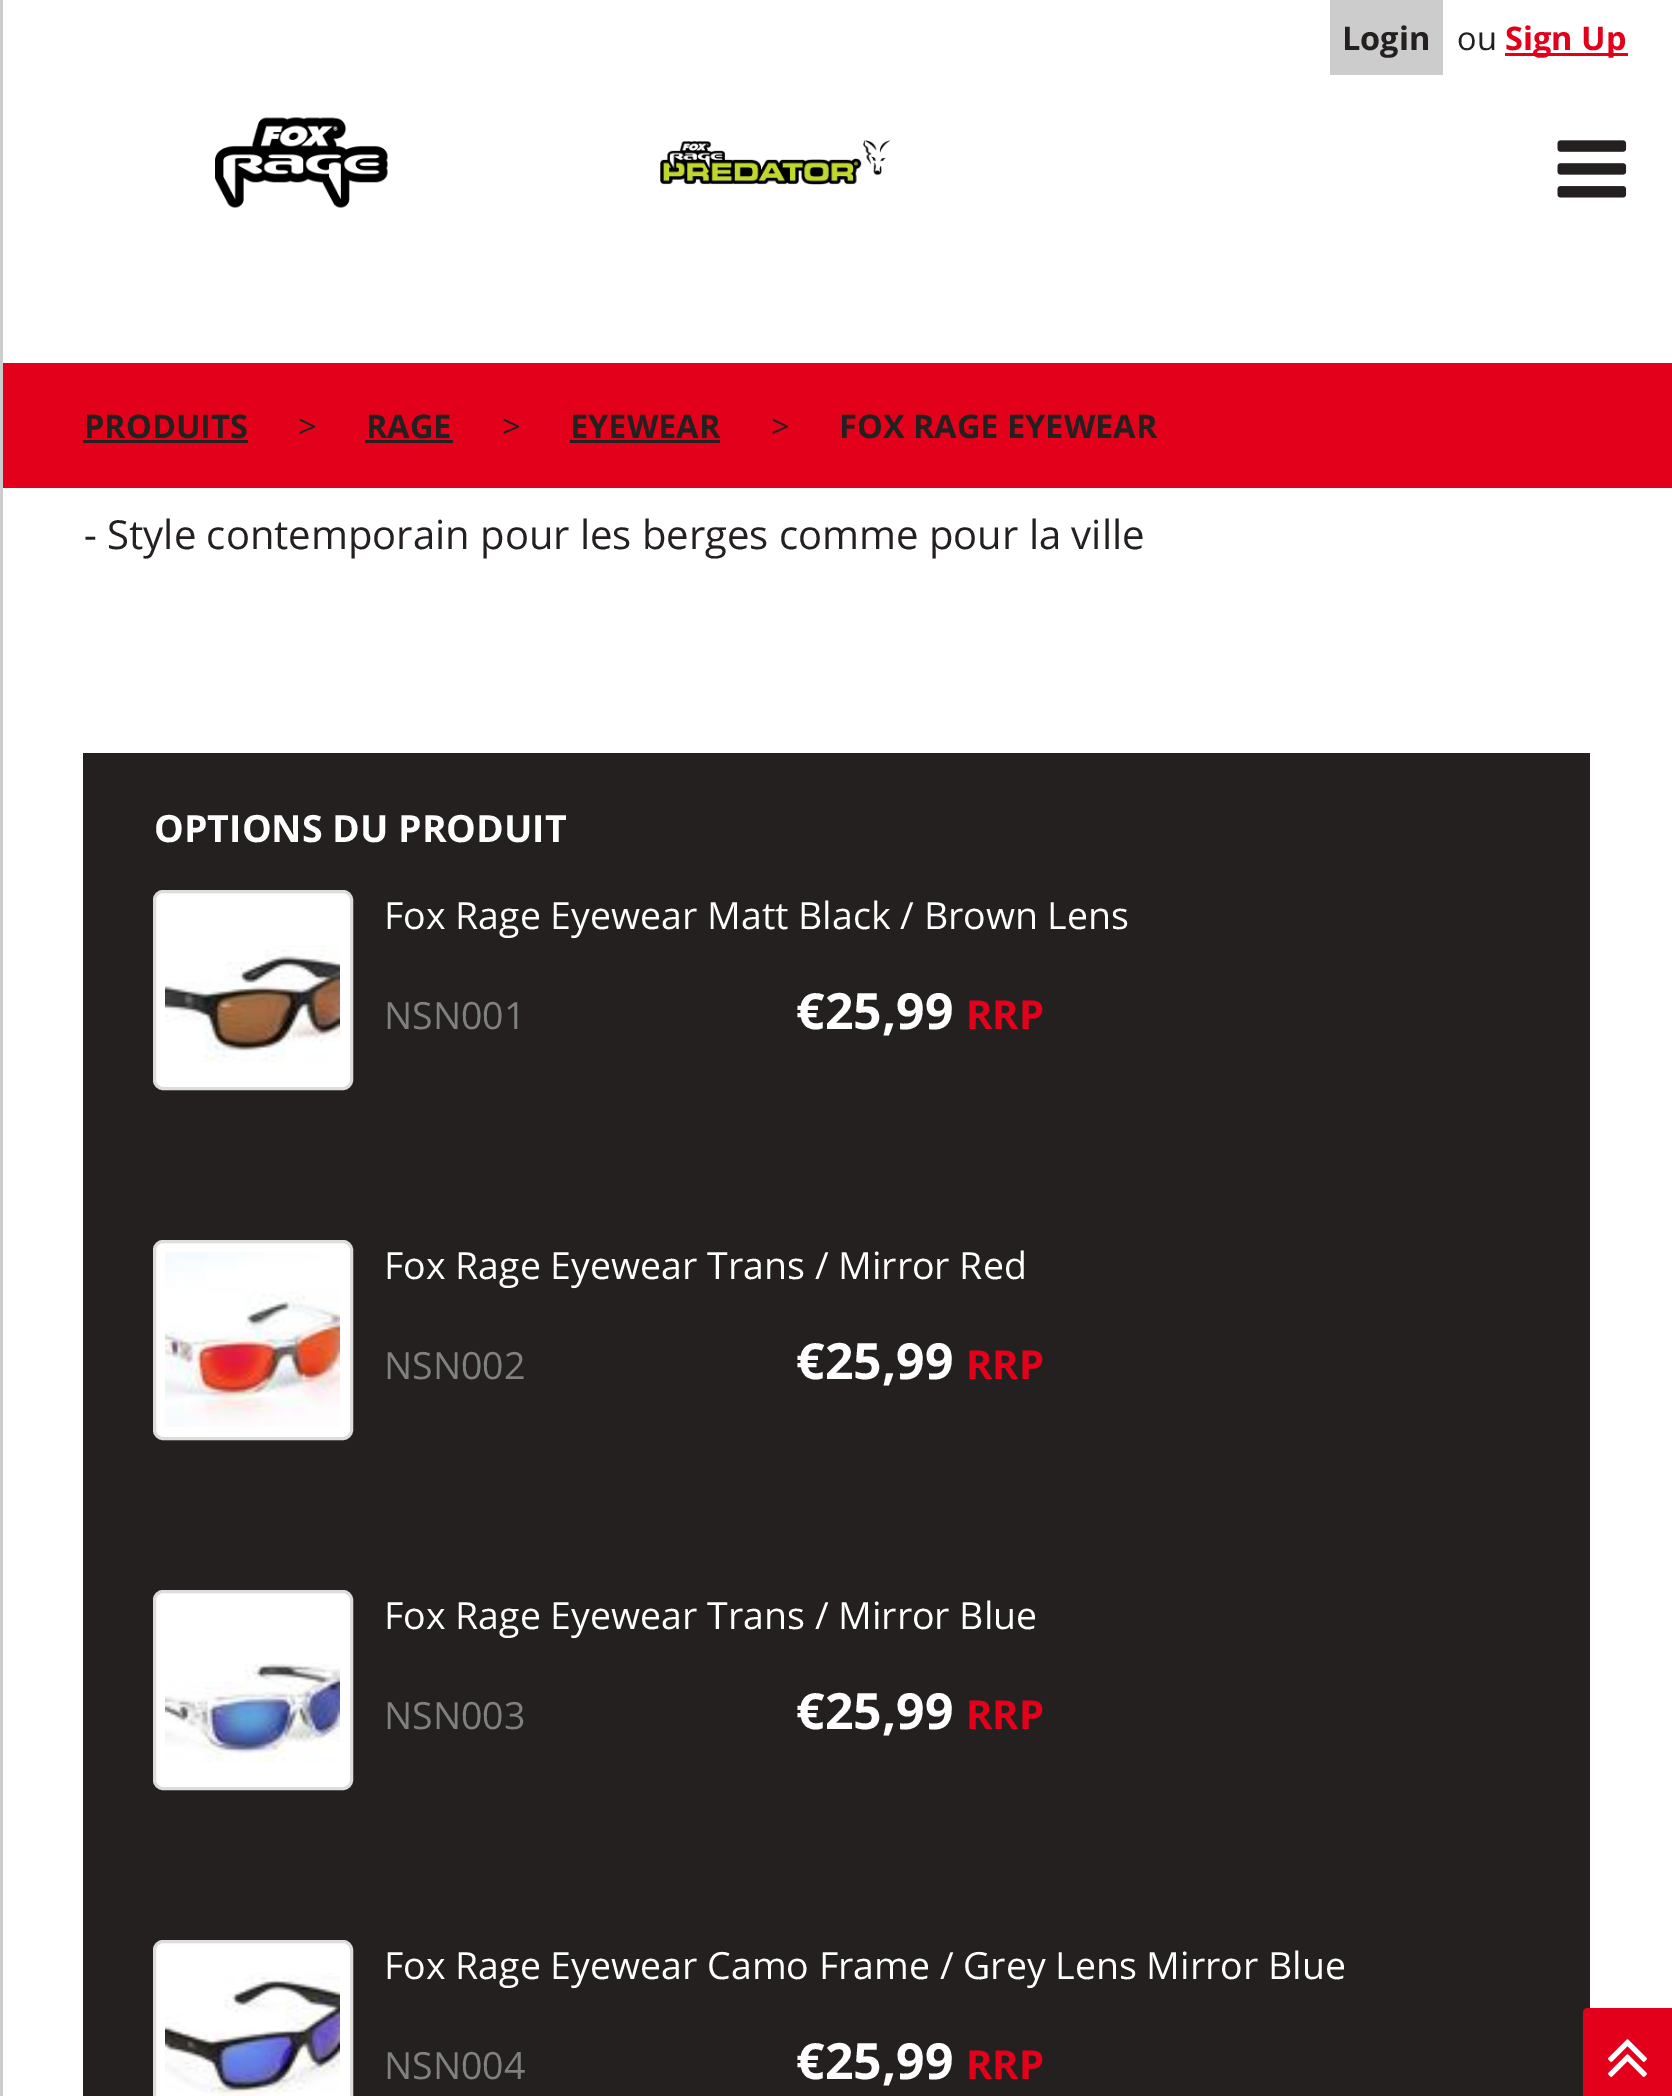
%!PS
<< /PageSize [1672 2096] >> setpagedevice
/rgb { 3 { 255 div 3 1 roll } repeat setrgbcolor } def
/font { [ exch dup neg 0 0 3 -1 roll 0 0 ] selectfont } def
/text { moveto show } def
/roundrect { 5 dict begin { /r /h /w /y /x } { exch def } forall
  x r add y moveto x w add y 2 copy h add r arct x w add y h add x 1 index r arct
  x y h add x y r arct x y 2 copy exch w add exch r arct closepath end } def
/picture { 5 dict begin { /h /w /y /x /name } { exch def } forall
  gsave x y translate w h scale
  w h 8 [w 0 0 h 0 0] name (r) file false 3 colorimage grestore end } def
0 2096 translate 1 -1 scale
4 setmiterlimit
255 255 255 rgb
0 0 1672 2096 rectfill
204 204 204 rgb
0 0 3 2096 rectfill
1330 0 113 75 rectfill
226 0 26 rgb
1505 53 123 3 rectfill
(img_01.rgb) 215 117 173 91 picture
(img_02.rgb) 660 140 230 45 picture
(img_03.rgb) 1557 140 70 58 picture
3 363 1669 125 rectfill
36 32 32 rgb
83 440 165 3 rectfill
365 440 88 3 rectfill
570 440 150 3 rectfill
83 753 1507 1343 rectfill
255 255 255 rgb
154.5 891.5 197 197 8.5 roundrect gsave fill grestore
221 221 221 rgb
3 setlinewidth
stroke
(img_04.rgb) 165 945 175 118 picture
255 255 255 rgb
154.5 1241.5 197 197 8.5 roundrect gsave fill grestore
221 221 221 rgb
stroke
(img_05.rgb) 165 1252 175 175 picture
255 255 255 rgb
154.5 1591.5 197 197 8.5 roundrect gsave fill grestore
221 221 221 rgb
stroke
(img_06.rgb) 165 1663 175 100 picture
255 255 255 rgb
154.5 1941.5 197 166 8.5 roundrect gsave fill grestore
221 221 221 rgb
stroke
(img_07.rgb) 165 1973 175 123 picture
226 0 26 rgb
1588 2010.5 moveto 82.5 0 rlineto 0 85 rlineto -85 0 rlineto 0 -82.5 rlineto 0 -1.5 1 -2.5 2.5 -2.5 rcurveto closepath gsave fill grestore
5 setlinewidth
stroke
(img_08.rgb) 1608 2039 39 38 picture
/OpenSans-Bold 32.5 font
36 32 32 rgb
(Login) 1342 50 text
/OpenSans-Regular 32.5 font
(ou) 1457 50 text
/OpenSans-Bold 32.5 font
226 0 26 rgb
(Sign Up) 1505 50 text
36 32 32 rgb
(PRODUITS) 84 438 text
/OpenSans-Regular 32.5 font
(>) 298 438 text
/OpenSans-Bold 32.5 font
(RAGE) 366 438 text
/OpenSans-Regular 32.5 font
(>) 502 438 text
/OpenSans-Bold 32.5 font
(EYEWEAR) 570 438 text
/OpenSans-Regular 32.5 font
(>) 771 438 text
/OpenSans-Bold 32.5 font
(FOX RAGE EYEWEAR) 839 438 text
/OpenSans-Regular 40 font
(- Style contemporain pour les berges comme pour la ville) 84 549 text
/OpenSans-Bold 37.5 font
255 255 255 rgb
(OPTIONS DU PRODUIT) 154 842 text
/OpenSans-Regular 37.5 font
(Fox Rage Eyewear Matt Black / Brown Lens) 384 929 text
128 128 128 rgb
(NSN001) 384 1029 text
/OpenSans-Bold 50 font
255 255 255 rgb
(€25,99) 796 1029 text
/OpenSans-Bold 40 font
226 0 26 rgb
(RRP) 966 1029 text
/OpenSans-Regular 37.5 font
255 255 255 rgb
(Fox Rage Eyewear Trans / Mirror Red) 384 1279 text
128 128 128 rgb
(NSN002) 384 1379 text
/OpenSans-Bold 50 font
255 255 255 rgb
(€25,99) 796 1379 text
/OpenSans-Bold 40 font
226 0 26 rgb
(RRP) 966 1379 text
/OpenSans-Regular 37.5 font
255 255 255 rgb
(Fox Rage Eyewear Trans / Mirror Blue) 384 1629 text
128 128 128 rgb
(NSN003) 384 1729 text
/OpenSans-Bold 50 font
255 255 255 rgb
(€25,99) 796 1729 text
/OpenSans-Bold 40 font
226 0 26 rgb
(RRP) 966 1729 text
/OpenSans-Regular 37.5 font
255 255 255 rgb
(Fox Rage Eyewear Camo Frame / Grey Lens Mirror Blue) 384 1979 text
128 128 128 rgb
(NSN004) 384 2079 text
/OpenSans-Bold 50 font
255 255 255 rgb
(€25,99) 796 2079 text
/OpenSans-Bold 40 font
226 0 26 rgb
(RRP) 966 2079 text
showpage
